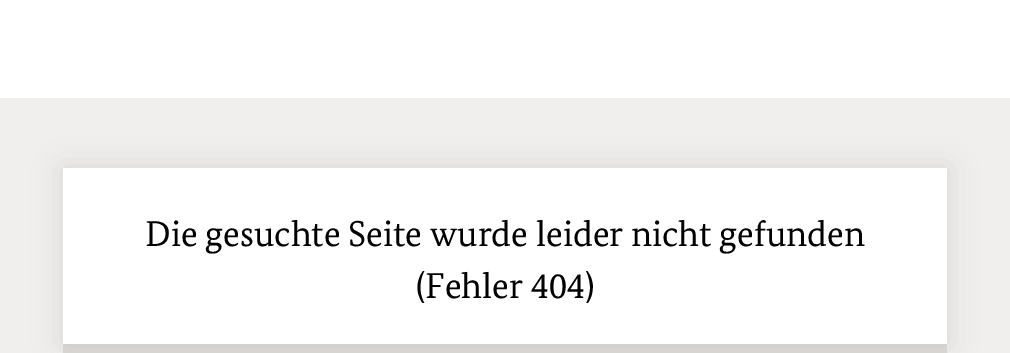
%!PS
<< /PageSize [1010 353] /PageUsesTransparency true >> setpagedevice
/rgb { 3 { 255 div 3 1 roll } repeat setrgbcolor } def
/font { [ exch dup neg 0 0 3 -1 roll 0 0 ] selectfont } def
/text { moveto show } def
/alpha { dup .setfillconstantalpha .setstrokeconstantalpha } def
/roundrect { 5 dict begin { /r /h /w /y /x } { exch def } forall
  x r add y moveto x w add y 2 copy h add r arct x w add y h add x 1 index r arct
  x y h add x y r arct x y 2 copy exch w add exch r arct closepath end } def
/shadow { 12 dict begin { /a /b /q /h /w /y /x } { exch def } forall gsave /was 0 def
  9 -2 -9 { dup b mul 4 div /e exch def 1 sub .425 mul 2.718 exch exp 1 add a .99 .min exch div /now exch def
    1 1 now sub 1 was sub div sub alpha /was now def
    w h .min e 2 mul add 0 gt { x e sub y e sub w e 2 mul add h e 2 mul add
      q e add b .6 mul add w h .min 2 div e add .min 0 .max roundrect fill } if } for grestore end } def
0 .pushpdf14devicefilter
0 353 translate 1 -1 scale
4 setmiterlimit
255 255 255 rgb
0 0 1010 353 rectfill
240 239 237 rgb
0 98 1010 255 rectfill
222 220 216 rgb
63 344 884 9 rectfill
0 0 0 rgb
63 168 884 176 0 15 0.1 shadow
255 255 255 rgb
63 168 884 176 rectfill
/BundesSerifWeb-Regular 36 font
0 0 0 rgb
(Die gesuchte Seite wurde leider nicht gefunden) 145 246 text
(\(Fehler 404\)) 416 298 text
.poppdf14devicefilter showpage
